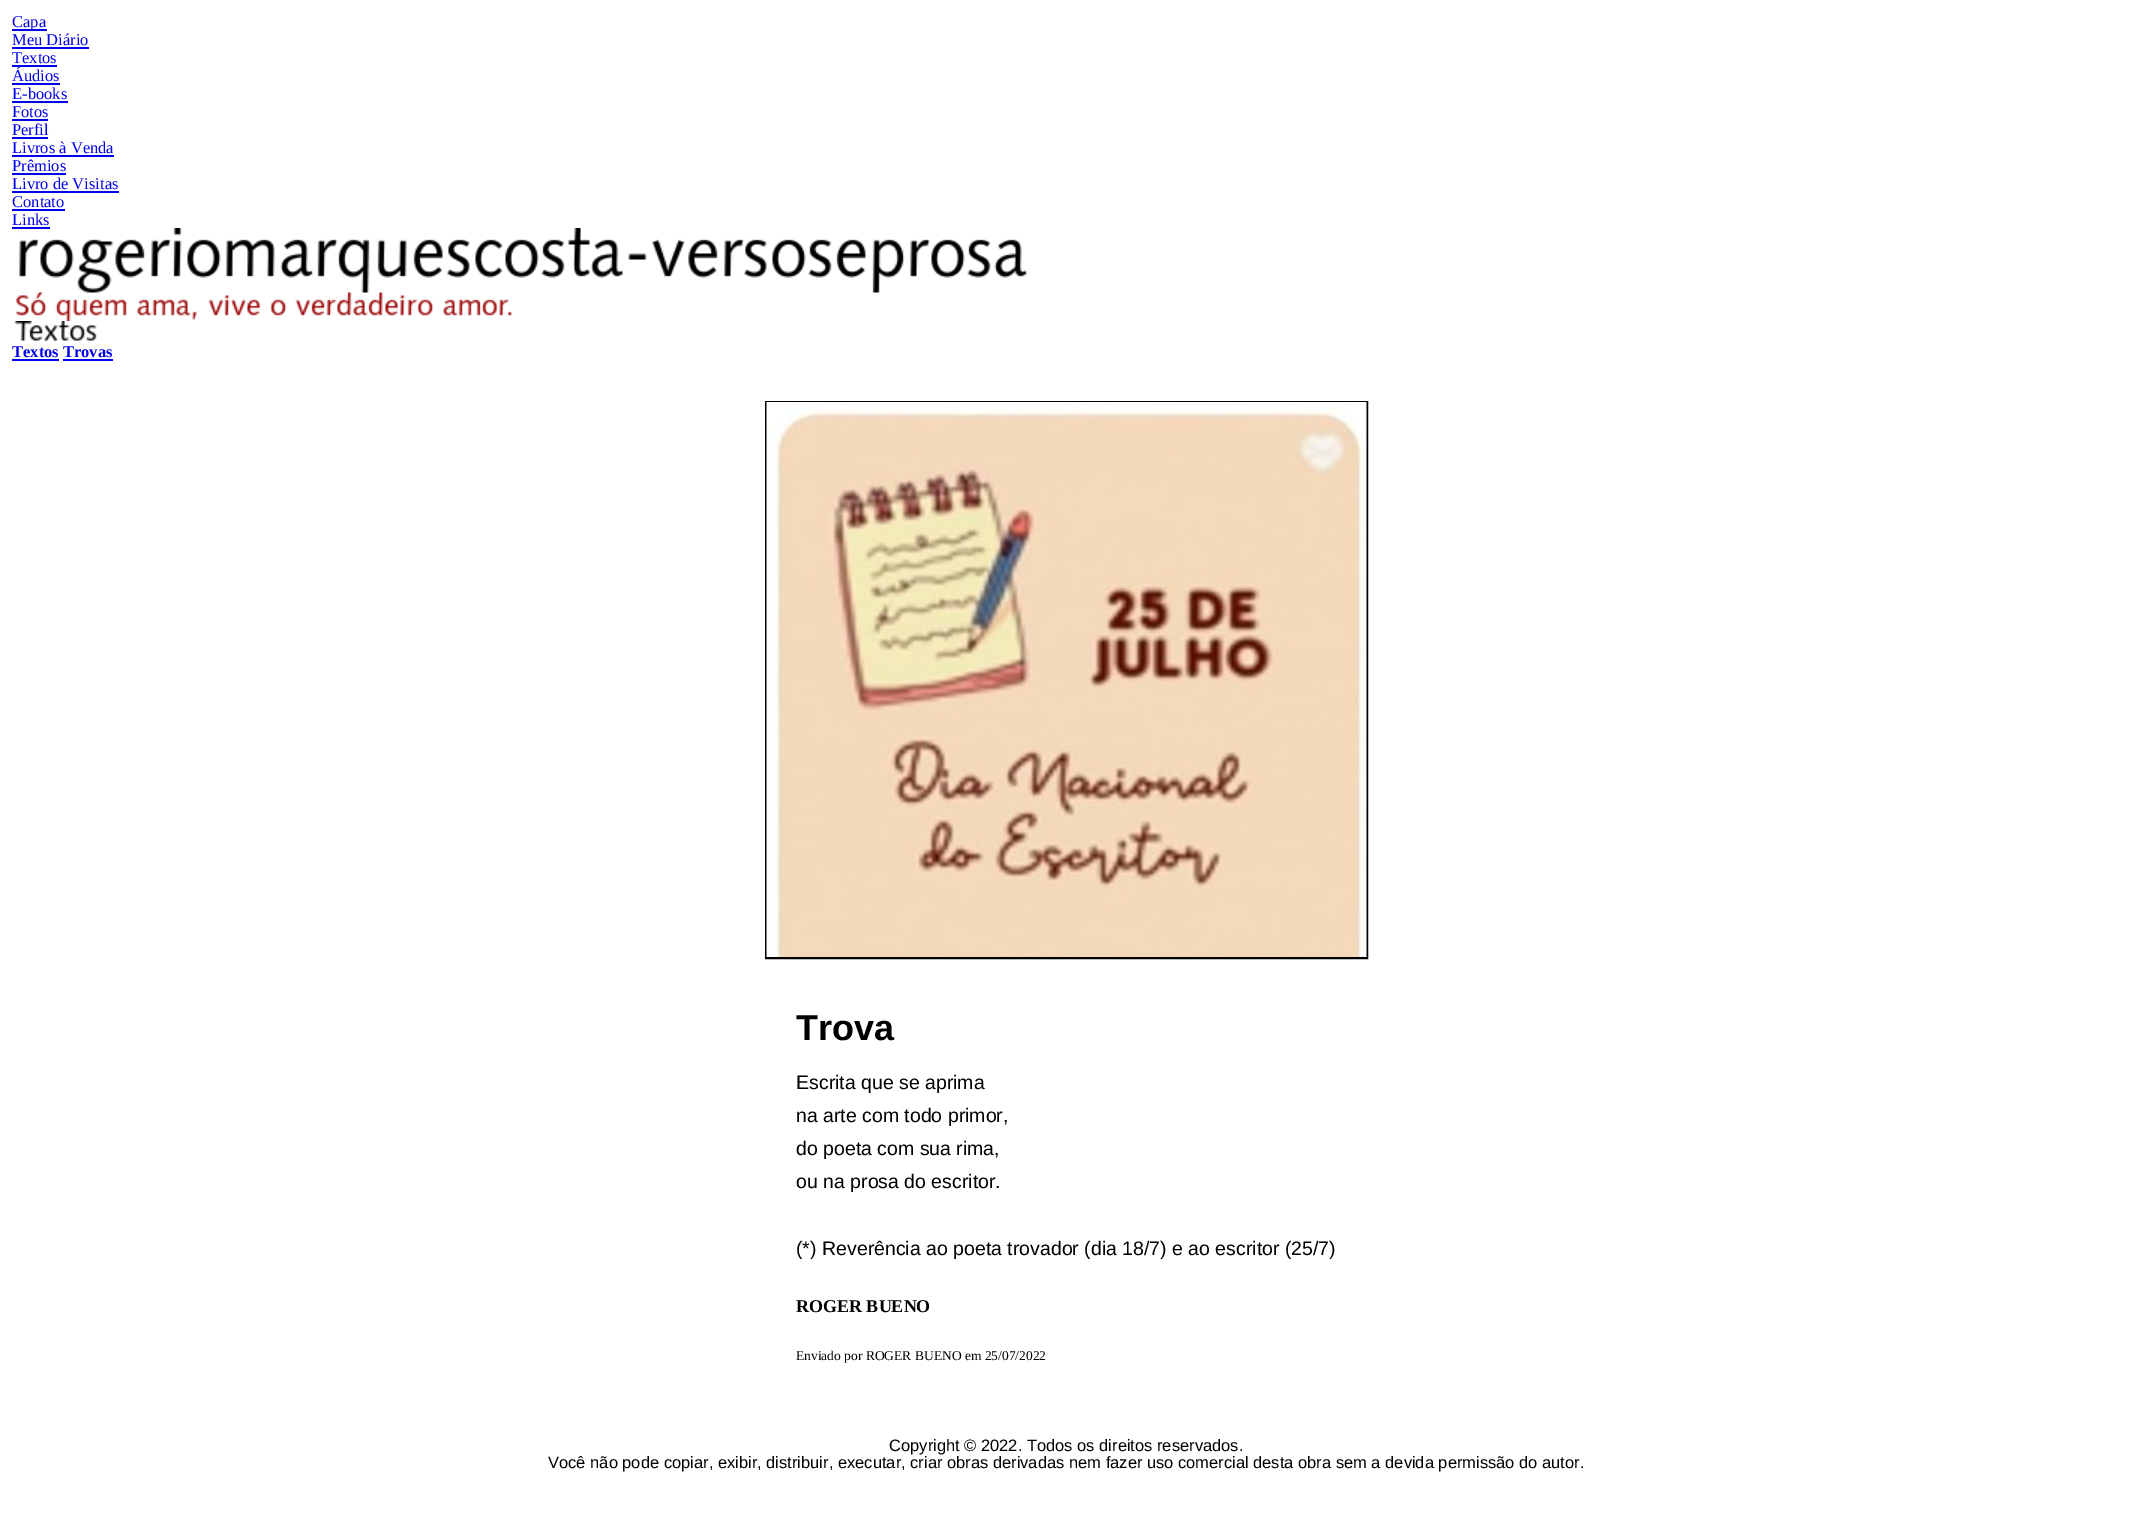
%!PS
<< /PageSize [2131 1525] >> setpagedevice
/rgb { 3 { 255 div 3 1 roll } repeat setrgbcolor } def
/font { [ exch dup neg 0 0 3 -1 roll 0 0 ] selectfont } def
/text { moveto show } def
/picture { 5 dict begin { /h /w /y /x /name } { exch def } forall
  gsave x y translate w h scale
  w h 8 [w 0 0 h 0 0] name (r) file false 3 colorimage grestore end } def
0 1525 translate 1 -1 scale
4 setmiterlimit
255 255 255 rgb
0 0 2131 1525 rectfill
0 0 238 rgb
12 29 35 2 rectfill
12 47 77 2 rectfill
12 65 45 2 rectfill
12 83 48 2 rectfill
12 101 56 2 rectfill
12 119 36 2 rectfill
12 137 36 2 rectfill
12 155 102 2 rectfill
12 173 54 2 rectfill
12 191 107 2 rectfill
12 209 53 2 rectfill
12 227 38 2 rectfill
(img_01.rgb) 19 228 1009 65 picture
(img_02.rgb) 16 292 496 29 picture
(img_03.rgb) 14 321 83 21 picture
12 359 47 2 rectfill
63 359 50 2 rectfill
0 0 0 rgb
2 setlinewidth
766 402 601 556 rectstroke
(img_04.rgb) 766 402 601 555 picture
/LiberationSerif-Regular 16.5 font
0 0 238 rgb
(Capa) 12 27 text
(Meu Diário) 12 45 text
(Textos) 12 63 text
(Áudios) 12 81 text
(E-books) 12 99 text
(Fotos) 12 117 text
(Perfil) 12 135 text
(Livros à Venda) 12 153 text
(Prêmios) 12 171 text
(Livro de Visitas) 12 189 text
(Contato) 12 207 text
(Links) 12 225 text
/LiberationSerif-Bold 16.5 font
(Textos Trovas) 12 357 text
/LiberationSans-Bold 36 font
0 0 0 rgb
(Trova) 796 1040 text
/LiberationSans-Regular 19.5 font
(Escrita que se aprima) 796 1089 text
(na arte com todo primor,) 796 1122 text
(do poeta com sua rima,) 796 1155 text
(ou na prosa do escritor.) 796 1188 text
(\(*\) Reverência ao poeta trovador \(dia 18/7\) e ao escritor \(25/7\)) 796 1255 text
/LiberationSerif-Bold 18 font
(ROGER BUENO) 796 1312 text
/LiberationSerif-Regular 13.5 font
(Enviado por ROGER BUENO em 25/07/2022) 796 1360 text
/LiberationSans-Regular 16.5 font
(Copyright © 2022. Todos os direitos reservados.) 889 1451 text
(Você não pode copiar, exibir, distribuir, executar, criar obras derivadas nem fazer uso comercial desta obra sem a devida permissão do autor.) 548 1468 text
showpage
